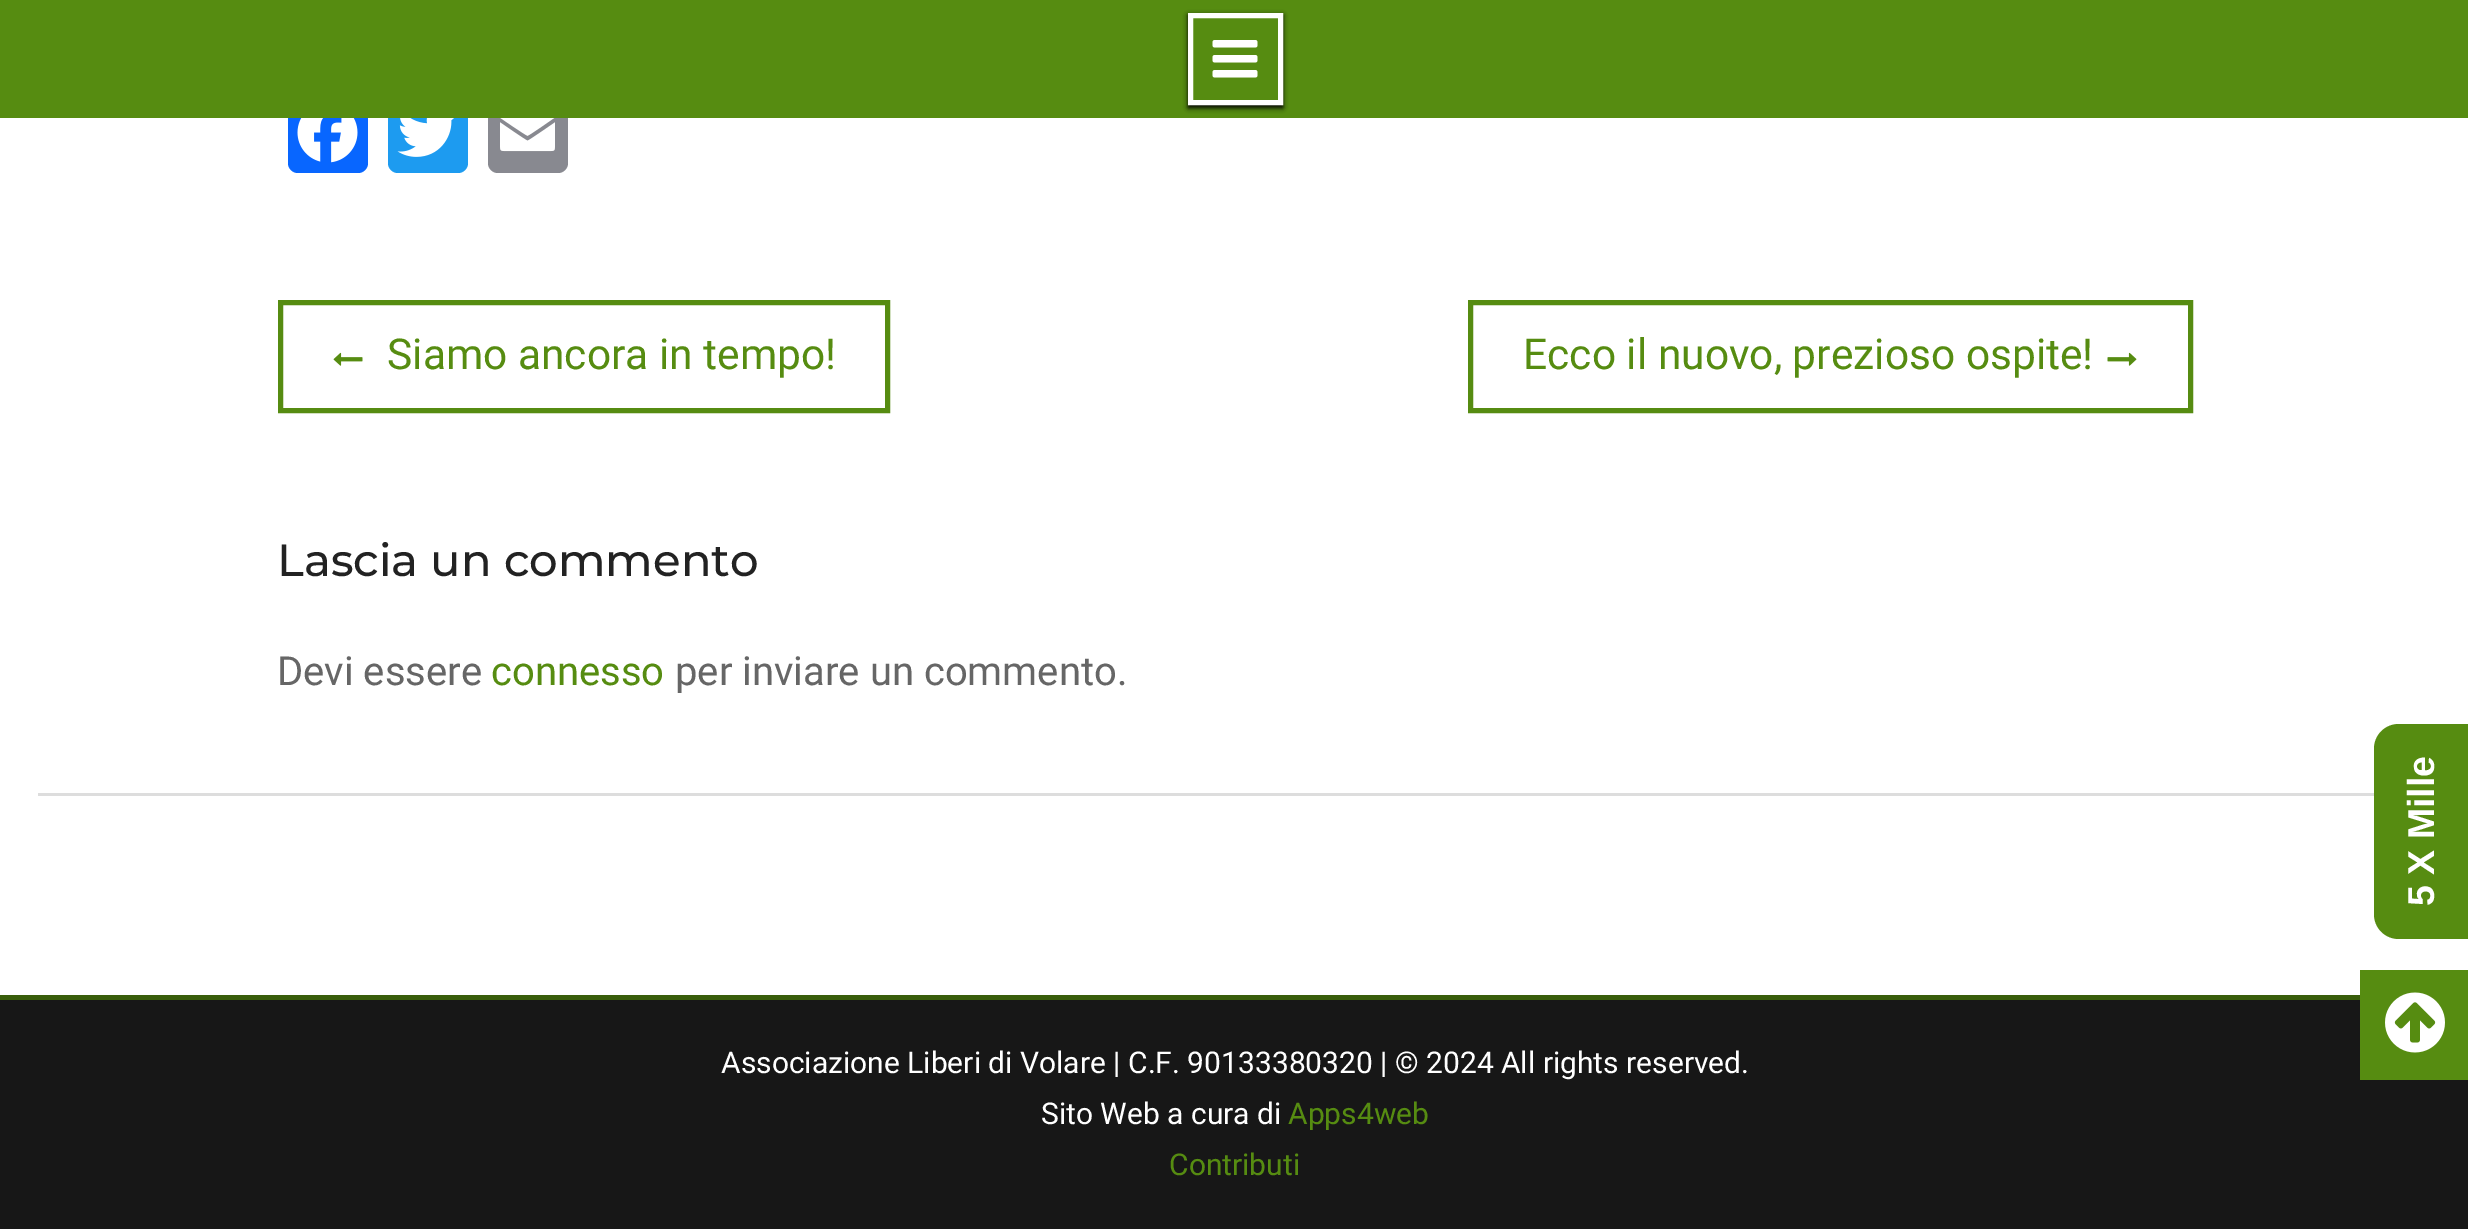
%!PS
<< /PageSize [2468 1229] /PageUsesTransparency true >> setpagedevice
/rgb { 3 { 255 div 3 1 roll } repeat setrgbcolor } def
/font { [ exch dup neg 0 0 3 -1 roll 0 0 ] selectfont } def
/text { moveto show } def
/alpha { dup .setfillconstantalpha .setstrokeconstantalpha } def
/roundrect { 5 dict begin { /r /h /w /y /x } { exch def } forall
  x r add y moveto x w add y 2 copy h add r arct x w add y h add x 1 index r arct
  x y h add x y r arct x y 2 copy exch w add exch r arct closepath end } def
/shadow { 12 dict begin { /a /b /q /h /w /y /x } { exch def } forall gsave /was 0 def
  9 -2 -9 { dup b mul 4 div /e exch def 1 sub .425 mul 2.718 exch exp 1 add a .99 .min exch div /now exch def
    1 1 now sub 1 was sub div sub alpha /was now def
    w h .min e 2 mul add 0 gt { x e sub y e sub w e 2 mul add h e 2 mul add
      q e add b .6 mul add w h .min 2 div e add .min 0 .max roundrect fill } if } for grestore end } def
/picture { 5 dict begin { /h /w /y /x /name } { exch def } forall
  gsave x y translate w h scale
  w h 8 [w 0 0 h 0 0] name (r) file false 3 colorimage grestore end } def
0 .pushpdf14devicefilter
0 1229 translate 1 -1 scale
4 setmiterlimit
255 255 255 rgb
0 0 2468 1229 rectfill
8 102 255 rgb
288 93 80 80 10 roundrect fill
29 155 240 rgb
388 93 80 80 10 roundrect fill
136 137 144 rgb
488 93 80 80 10 roundrect fill
86 140 17 rgb
0 0 2468 118 rectfill
0 0 0 rgb
1188 15 95 93 0 2.5 1 shadow
86 140 17 rgb
1190.5 15.5 moveto 90 0 rlineto 0 87 rlineto -90 0 rlineto closepath gsave fill grestore
255 255 254 rgb
5 setlinewidth
stroke
(img_01.rgb) 1212 40 46 38 picture
221 221 221 rgb
38 793 2336 3 rectfill
(img_02.rgb) 297 118 61 45 picture
(img_03.rgb) 397 118 57 39 picture
(img_04.rgb) 500 118 55 34 picture
86 140 17 rgb
280.5 302.5 607 108 rectstroke
(img_05.rgb) 333 352 30 14 picture
1470.5 302.5 720 108 rectstroke
(img_06.rgb) 2107 352 30 14 picture
23 23 23 rgb
0 1000 2468 229 rectfill
57 93 11 rgb
0 995 2360 5 rectfill
86 140 17 rgb
2374 914 moveto 0 -165 rlineto 0 -14 11 -25 25 -25 rcurveto 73 0 rlineto 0 215 rlineto -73 0 rlineto -14 0 -25 -11 -25 -25 rcurveto closepath fill
2360 970 108 110 rectfill
(img_07.rgb) 2385 992 60 61 picture
/Roboto-Regular 42.5 font
(Siamo ancora in tempo!) 387 369 text
(Ecco il nuovo, prezioso ospite!) 1523 369 text
/Montserrat-Medium 45 font
34 34 34 rgb
(Lascia un commento) 277 576 text
/Roboto-Regular 40 font
102 102 102 rgb
(Devi essere) 277 685 text
86 140 17 rgb
(connesso) 491 685 text
102 102 102 rgb
(per inviare un commento.) 675 685 text
/Roboto-Regular 30 font
255 255 255 rgb
(Associazione Liberi di Volare | C.F. 90133380320 | © 2024 All rights reserved.) 721 1073 text
(Sito Web a cura di) 1041 1124 text
86 140 17 rgb
(Apps4web) 1288 1124 text
(Contributi) 1169 1175 text
/LiberationSans-Bold 37.5 font
255 255 255 rgb
gsave 2434 906 translate -90 rotate 0 0 moveto (5 X Mille) show grestore
.poppdf14devicefilter showpage
